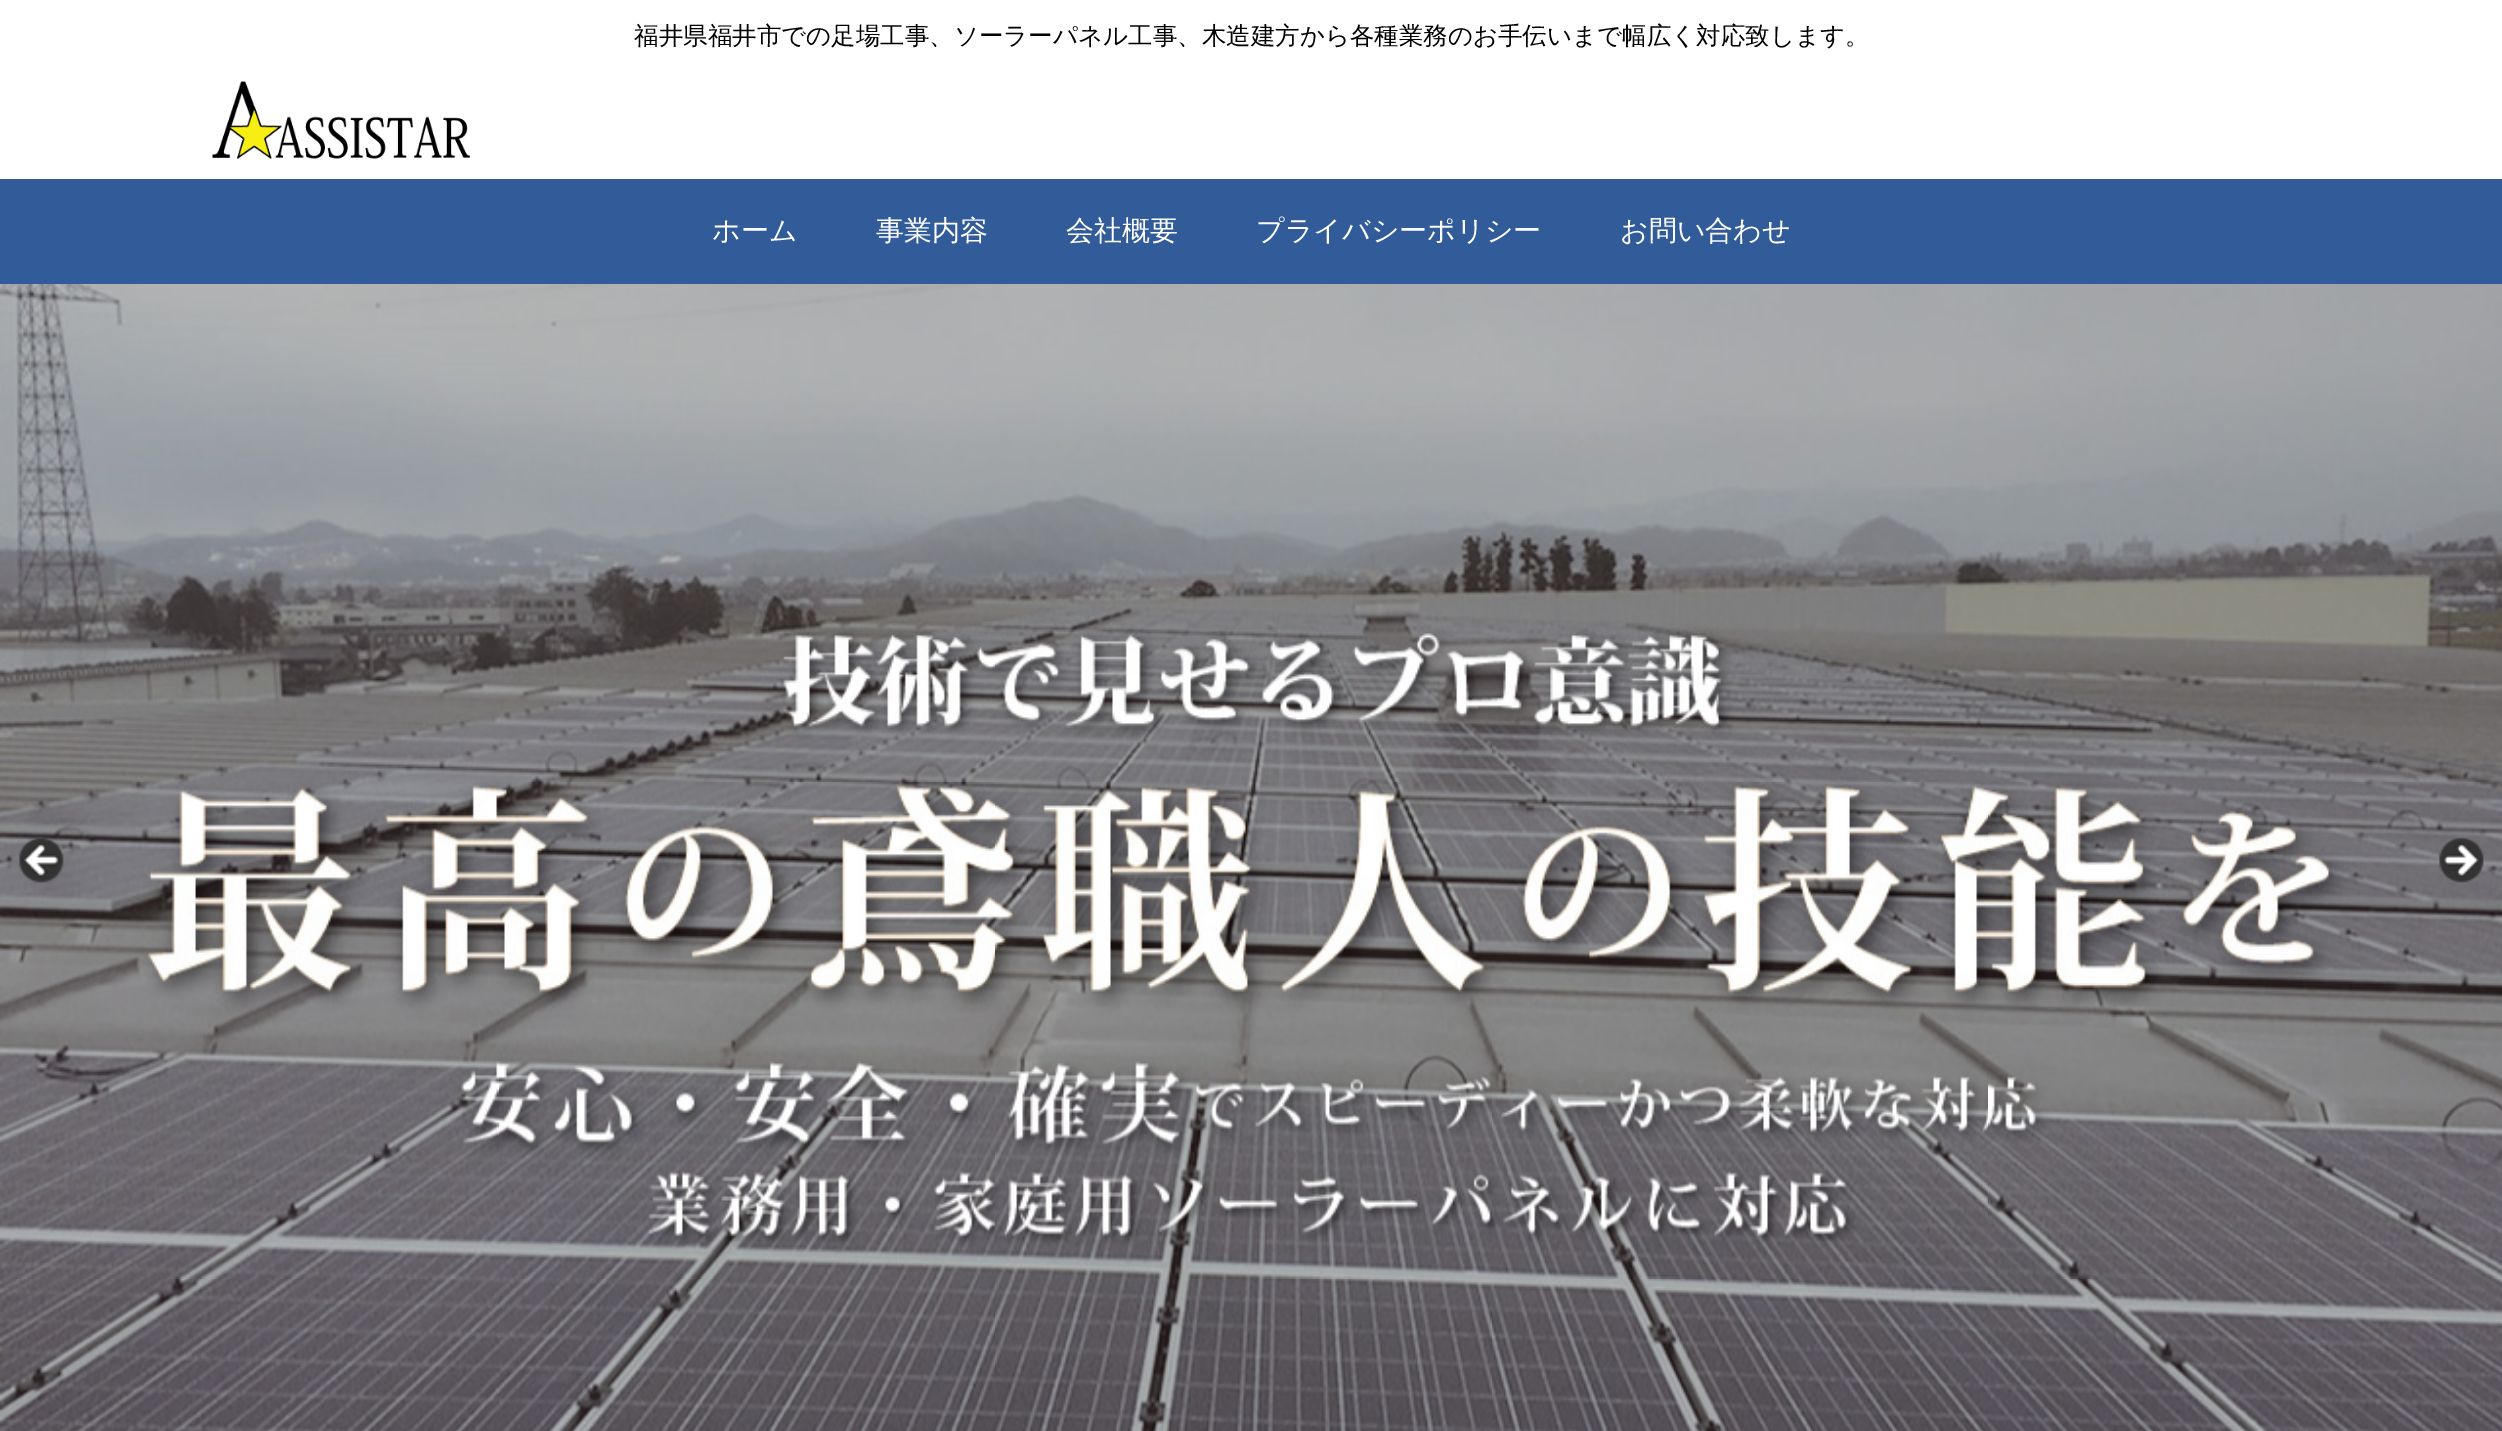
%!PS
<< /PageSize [2502 1431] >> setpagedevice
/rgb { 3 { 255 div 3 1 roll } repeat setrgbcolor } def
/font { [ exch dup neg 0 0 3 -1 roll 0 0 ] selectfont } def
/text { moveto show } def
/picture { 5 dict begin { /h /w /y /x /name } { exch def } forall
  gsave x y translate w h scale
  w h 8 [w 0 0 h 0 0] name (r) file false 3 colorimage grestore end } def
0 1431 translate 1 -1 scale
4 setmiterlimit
255 255 255 rgb
0 0 2502 1431 rectfill
(img_01.rgb) 212 81 258 78 picture
50 91 153 rgb
0 179 2502 105 rectfill
(img_02.rgb) 0 284 2502 1147 picture
(img_03.rgb) 18 838 46 45 picture
(img_04.rgb) 2439 837 45 46 picture
/WenQuanYiZenHei-Medium 24.5 font
0 0 0 rgb
(福井県福井市での足場工事、ソーラーパネル工事、木造建方から各種業務のお手伝いまで幅広く対応致します。) 634 44 text
/WenQuanYiZenHei-Medium 28 font
255 255 255 rgb
(ホーム) 712 240 text
(事業内容) 876 240 text
(会社概要) 1066 240 text
(プライバシーポリシー) 1256 240 text
(お問い合わせ) 1620 240 text
showpage
